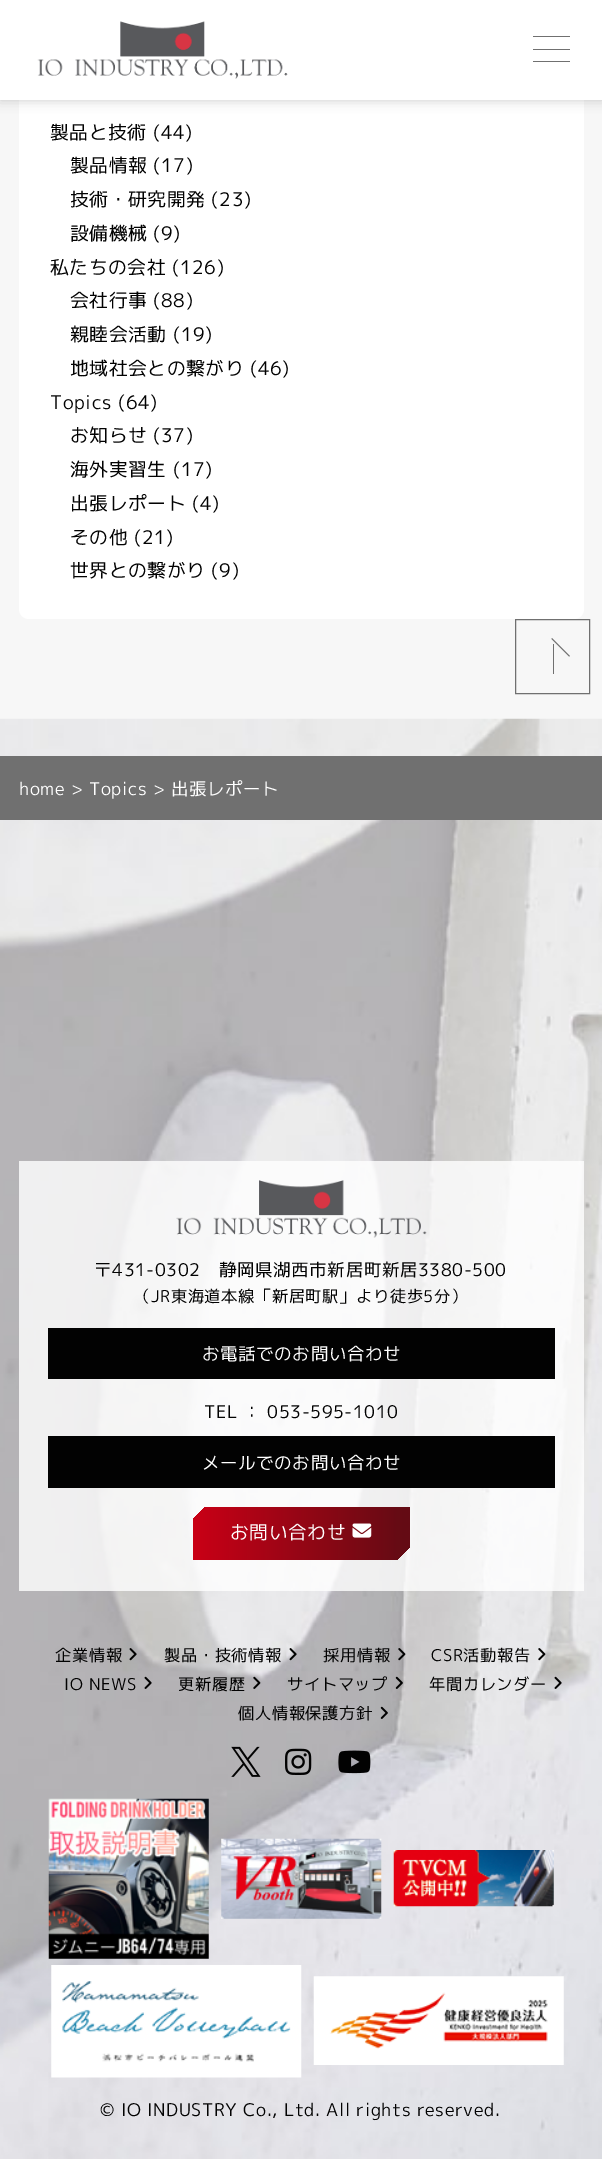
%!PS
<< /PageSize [602 2159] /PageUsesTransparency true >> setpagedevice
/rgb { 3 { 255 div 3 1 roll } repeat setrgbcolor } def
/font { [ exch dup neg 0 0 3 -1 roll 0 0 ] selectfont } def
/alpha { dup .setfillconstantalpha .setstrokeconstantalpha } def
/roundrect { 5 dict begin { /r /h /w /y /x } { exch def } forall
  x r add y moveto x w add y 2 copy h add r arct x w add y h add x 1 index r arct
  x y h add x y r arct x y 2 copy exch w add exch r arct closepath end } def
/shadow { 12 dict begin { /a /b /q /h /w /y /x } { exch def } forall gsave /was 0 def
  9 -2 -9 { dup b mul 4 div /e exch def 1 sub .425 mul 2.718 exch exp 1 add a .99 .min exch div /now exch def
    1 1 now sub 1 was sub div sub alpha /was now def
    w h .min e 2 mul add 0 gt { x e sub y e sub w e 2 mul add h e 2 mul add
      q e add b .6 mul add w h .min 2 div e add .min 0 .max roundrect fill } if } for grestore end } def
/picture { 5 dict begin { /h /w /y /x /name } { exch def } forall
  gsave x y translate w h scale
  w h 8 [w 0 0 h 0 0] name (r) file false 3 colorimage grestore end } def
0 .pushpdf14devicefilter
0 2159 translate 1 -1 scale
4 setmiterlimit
247 247 247 rgb
0 0 602 2159 rectfill
255 255 255 rgb
19 35 565 584 10 roundrect fill
0 0 0 rgb
0 0 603 100 0 6 0.2 shadow
255 255 255 rgb
0 0 602 100 rectfill
(img_01.rgb) 37 21 251 58 picture
112 112 112 rgb
533 36 37 1 rectfill
533 49 37 1 rectfill
533 61 37 1 rectfill
(img_02.rgb) 0 718 602 1441 picture
515.5 619.5 74 74 rectstroke
553 644 1 30 rectfill
551.5 639 moveto 0.5 -1 rlineto 18 18 rlineto -1 0.5 rlineto closepath fill
0 756 602 64 rectfill
0.8 alpha
255 255 255 rgb
19 1161 565 430 rectfill
1 alpha
(img_03.rgb) 176 1180 251 58 picture
2 2 2 rgb
48 1328 507 51 rectfill
48 1436 507 52 rectfill
gsave 205 1507 moveto 205 0 rlineto 0 40 rlineto -13 13 rlineto -204 0 rlineto 0 -41 rlineto closepath clip newpath
<< /ShadingType 2 /ColorSpace /DeviceRGB /Coords [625 1533 190 1533] /Extend [true true] /Function << /FunctionType 3 /Domain [0 1] /Functions [<< /FunctionType 2 /Domain [0 1] /C0 [0.796 0 0.086] /C1 [0.392 0.043 0.078] /N 1 >> << /FunctionType 2 /Domain [0 1] /C0 [0.392 0.043 0.078] /C1 [0.392 0.043 0.078] /N 1 >> << /FunctionType 2 /Domain [0 1] /C0 [0.392 0.043 0.078] /C1 [0.796 0 0.086] /N 1 >>] /Bounds [0.25 0.51] /Encode [0 1 0 1 0 1] >> >> shfill grestore
(img_04.rgb) 352 1523 20 15 picture
(img_05.rgb) 129 1648 8 13 picture
(img_06.rgb) 289 1648 8 13 picture
(img_07.rgb) 398 1648 8 13 picture
(img_08.rgb) 538 1648 8 13 picture
(img_09.rgb) 144 1676 8 13 picture
(img_10.rgb) 253 1676 8 13 picture
(img_11.rgb) 395 1676 8 13 picture
(img_12.rgb) 554 1676 8 13 picture
(img_13.rgb) 380 1706 8 13 picture
(img_14.rgb) 231 1746 30 31 picture
(img_15.rgb) 285 1748 27 27 picture
(img_16.rgb) 338 1750 33 24 picture
(img_17.rgb) 48 1798 161 161 picture
(img_18.rgb) 221 1838 161 81 picture
(img_19.rgb) 393 1850 161 57 picture
(img_20.rgb) 51 1965 251 113 picture
(img_21.rgb) 313 1976 251 89 picture
/MPLUS1p-Regular 18.75 font
50 139 moveto 0.6 0 (製品と技術 \(44\)) ashow
70 172 moveto 0.6 0 (製品情報 \(17\)) ashow
70 206 moveto 0.6 0 (技術・研究開発 \(23\)) ashow
70 240 moveto 0.6 0 (設備機械 \(9\)) ashow
50 274 moveto 0.6 0 (私たちの会社 \(126\)) ashow
70 307 moveto 0.6 0 (会社行事 \(88\)) ashow
70 341 moveto 0.6 0 (親睦会活動 \(19\)) ashow
70 375 moveto 0.6 0 (地域社会との繋がり \(46\)) ashow
50 409 moveto 0.6 0 (Topics \(64\)) ashow
70 442 moveto 0.6 0 (お知らせ \(37\)) ashow
70 476 moveto 0.6 0 (海外実習生 \(17\)) ashow
70 510 moveto 0.6 0 (出張レポート \(4\)) ashow
70 544 moveto 0.6 0 (その他 \(21\)) ashow
70 577 moveto 0.6 0 (世界との繋がり \(9\)) ashow
/MPLUS1p-Regular 17.5 font
255 255 255 rgb
19 795 moveto 0.6 0 (home > Topics > 出張レポート) ashow
2 2 2 rgb
94 1276 moveto 0.6 0 (〒431-0302　静岡県湖西市新居町新居3380-500) ashow
/MPLUS1p-Regular 16.25 font
134 1302 moveto 0.6 0 (（JR東海道本線「新居町駅」より徒歩5分）) ashow
/MPLUS1p-Regular 17.5 font
255 255 255 rgb
202 1360 moveto 0.6 0 (お電話でのお問い合わせ) ashow
2 2 2 rgb
204 1418 moveto 0.6 0 (TEL ： 053-595-1010) ashow
255 255 255 rgb
202 1469 moveto 0.6 0 (メールでのお問い合わせ) ashow
/MPLUS1p-Regular 18.75 font
230 1539 moveto 0.6 0 (お問い合わせ) ashow
/MPLUS1p-Regular 16.25 font
2 2 2 rgb
55 1661 moveto 0.6 0 (企業情報) ashow
164 1661 moveto 0.6 0 (製品・技術情報) ashow
323 1661 moveto 0.6 0 (採用情報) ashow
431 1661 moveto 0.6 0 (CSR活動報告) ashow
64 1690 moveto 0.6 0 (IO NEWS) ashow
178 1690 moveto 0.6 0 (更新履歴) ashow
287 1690 moveto 0.6 0 (サイトマップ) ashow
429 1690 moveto 0.6 0 (年間カレンダー) ashow
238 1719 moveto 0.6 0 (個人情報保護方針) ashow
/MPLUS1p-Regular 17.5 font
100 2116 moveto 0.6 0 (© IO INDUSTRY Co., Ltd. All rights reserved.) ashow
.poppdf14devicefilter showpage
